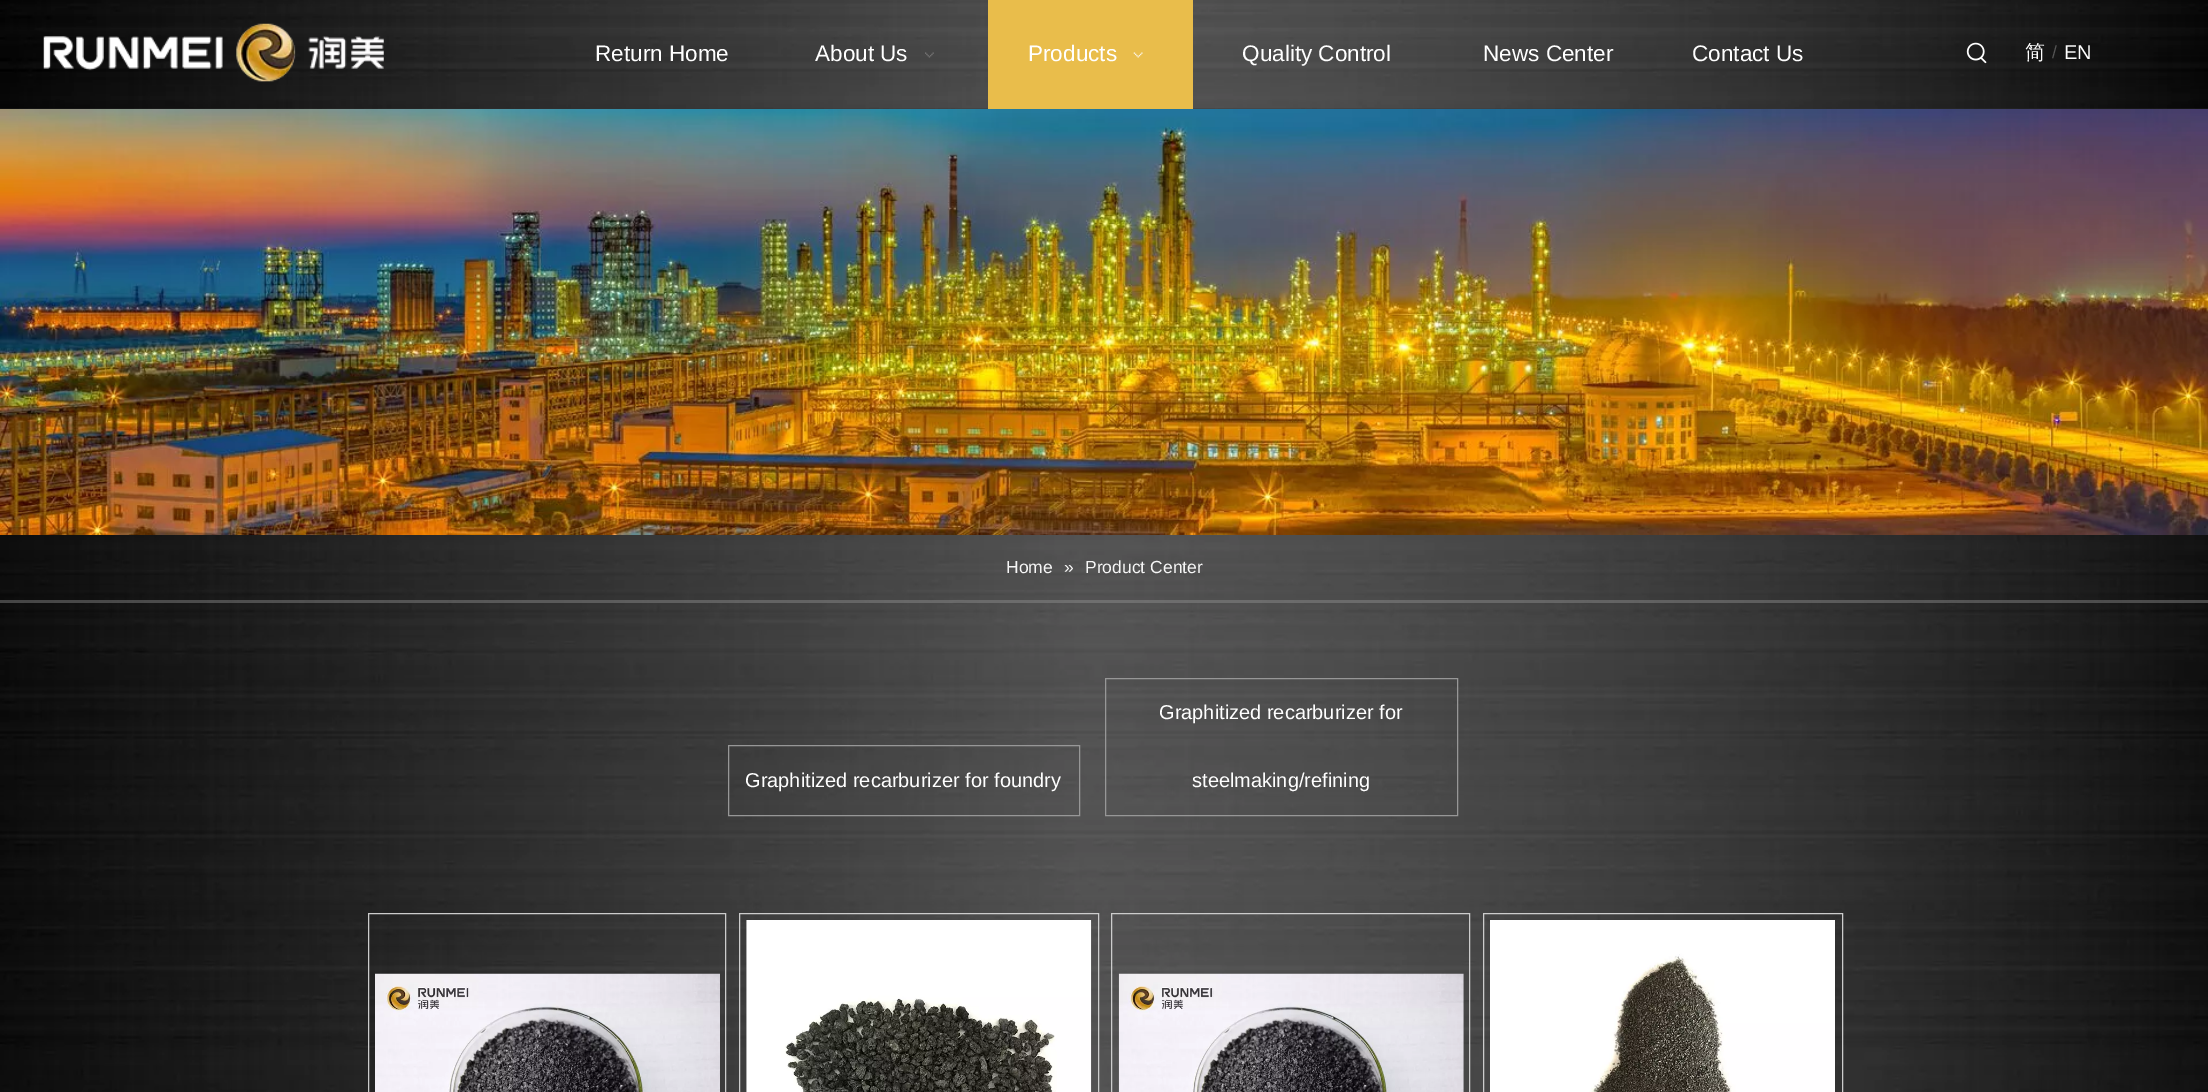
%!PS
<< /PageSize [2208 1092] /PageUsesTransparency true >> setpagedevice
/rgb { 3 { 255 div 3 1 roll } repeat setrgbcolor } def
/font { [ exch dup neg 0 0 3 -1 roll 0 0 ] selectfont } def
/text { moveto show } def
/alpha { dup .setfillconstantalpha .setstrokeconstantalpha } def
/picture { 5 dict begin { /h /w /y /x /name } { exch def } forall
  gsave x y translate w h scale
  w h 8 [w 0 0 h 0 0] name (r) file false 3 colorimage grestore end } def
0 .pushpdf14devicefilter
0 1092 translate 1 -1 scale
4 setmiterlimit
255 255 255 rgb
0 0 2208 1092 rectfill
(img_01.rgb) 0 108 2208 984 picture
(img_07.rgb) 0 108 2208 427 picture
(img_02.rgb) 0 0 2208 109 picture
(img_03.rgb) 43 23 341 59 picture
(img_04.rgb) 925 52 9 6 picture
233 189 75 rgb
988 0 205 109 rectfill
(img_05.rgb) 1133 52 10 6 picture
(img_06.rgb) 1966 42 21 22 picture
0.41 alpha
151 151 151 rgb
0 600 2208 3 rectfill
1 alpha
728.5 745.5 351 70 rectstroke
1105.5 678.5 352 137 rectstroke
204 204 204 rgb
368.5 913.5 357 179 rectstroke
(img_08.rgb) 375 973 345 119 picture
739.5 913.5 359 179 rectstroke
(img_09.rgb) 746 920 346 172 picture
1111.5 913.5 358 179 rectstroke
(img_10.rgb) 1118 973 346 119 picture
1483.5 913.5 359 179 rectstroke
(img_11.rgb) 1490 920 345 172 picture
/LiberationSans-Regular 22.5 font
255 255 255 rgb
(Return Home) 595 61 text
(About Us) 815 61 text
(Products) 1028 61 text
(Quality Control) 1242 61 text
(News Center) 1483 61 text
(Contact Us) 1692 61 text
/WenQuanYiZenHei-Medium 20 font
(简) 2025 59 text
/LiberationSans-Regular 17.5 font
84 84 84 rgb
(/) 2052 58 text
/LiberationSans-Regular 20 font
255 255 255 rgb
(EN) 2064 59 text
/LiberationSans-Regular 17.5 font
246 246 246 rgb
(Home) 1006 573 text
(») 1064 573 text
(Product Center) 1085 573 text
/LiberationSans-Regular 20 font
255 255 255 rgb
(Graphitized recarburizer for foundry) 745 787 text
(Graphitized recarburizer for) 1159 719 text
(steelmaking/refining) 1192 787 text
.poppdf14devicefilter showpage
